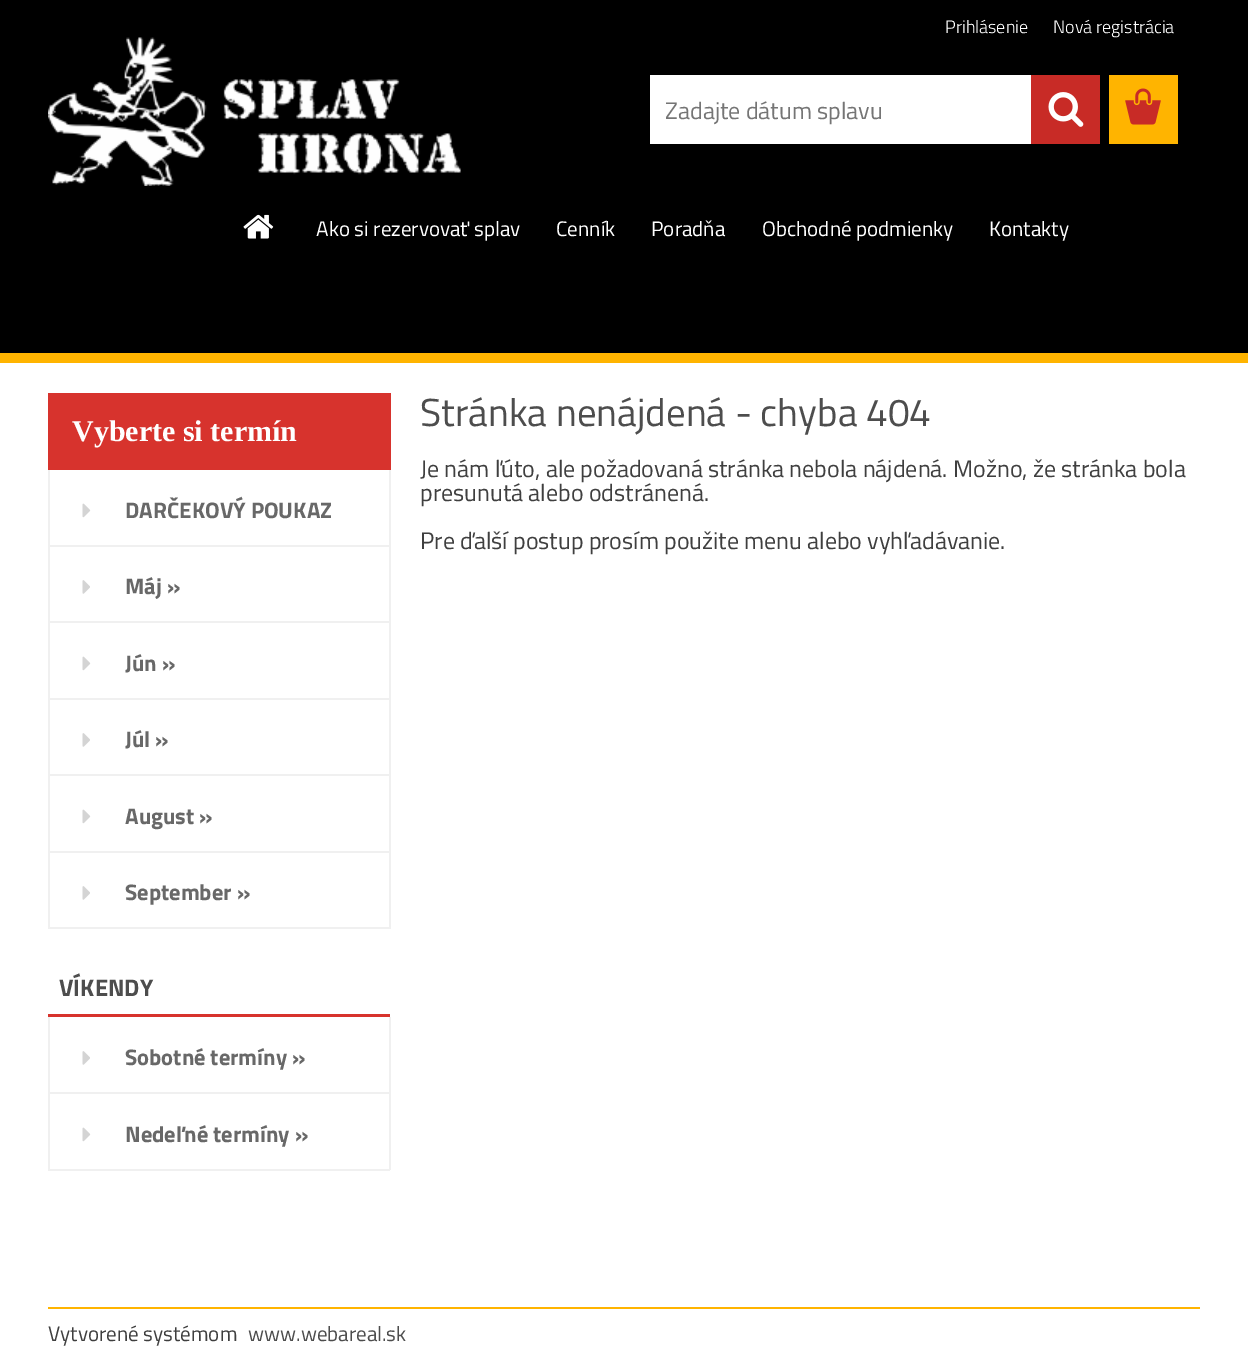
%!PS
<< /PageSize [1248 1358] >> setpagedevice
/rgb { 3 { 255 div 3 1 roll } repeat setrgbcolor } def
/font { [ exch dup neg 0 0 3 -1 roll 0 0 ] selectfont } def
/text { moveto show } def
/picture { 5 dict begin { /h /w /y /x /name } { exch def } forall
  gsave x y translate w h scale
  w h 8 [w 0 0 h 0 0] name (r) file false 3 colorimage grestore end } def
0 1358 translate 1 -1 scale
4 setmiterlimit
255 255 255 rgb
0 0 1248 1358 rectfill
0 0 0 rgb
0 0 1248 353 rectfill
255 180 0 rgb
1109 75 69 69 rectfill
(img_01.rgb) 1125 88 36 37 picture
215 51 45 rgb
48 393 343 77 rectfill
240 240 240 rgb
389 470 2 76 rectfill
48 545 342 2 rectfill
48 470 2 76 rectfill
(img_02.rgb) 82 503 9 15 picture
389 546 2 153 rectfill
48 621 342 2 rectfill
48 546 2 77 rectfill
(img_03.rgb) 82 580 8 14 picture
48 698 342 2 rectfill
48 623 2 76 rectfill
(img_02.rgb) 82 656 9 15 picture
389 699 2 153 rectfill
48 774 342 2 rectfill
48 699 2 77 rectfill
(img_03.rgb) 82 733 8 14 picture
48 851 342 2 rectfill
48 776 2 76 rectfill
(img_02.rgb) 82 809 9 15 picture
389 852 2 77 rectfill
48 927 342 2 rectfill
48 852 2 77 rectfill
(img_03.rgb) 82 886 8 14 picture
215 51 45 rgb
48 1014 342 3 rectfill
240 240 240 rgb
389 1017 2 153 rectfill
48 1092 342 2 rectfill
48 1017 2 77 rectfill
(img_03.rgb) 82 1051 8 14 picture
48 1169 342 2 rectfill
48 1094 2 76 rectfill
(img_02.rgb) 82 1127 9 15 picture
255 180 0 rgb
48 1307 1152 2 rectfill
0 353 1248 10 rectfill
(img_04.rgb) 48 37 413 149 picture
255 255 255 rgb
650 75 381 69 rectfill
200 43 38 rgb
1031 75 69 69 rectfill
(img_05.rgb) 1048 92 36 35 picture
(img_06.rgb) 243 214 31 25 picture
/TitilliumWeb-Light 18 font
255 255 255 rgb
(Prihlásenie) 945 33 text
(Nová registrácia) 1053 33 text
/LiberationSerif-Bold 30 font
(Vyberte si termín) 72 441 text
/TitilliumWeb-Bold 22.5 font
104 104 104 rgb
(DARČEKOVÝ POUKAZ) 125 518 text
(Máj ») 125 594 text
(Jún ») 125 671 text
(Júl ») 125 747 text
(August ») 125 824 text
(September ») 125 900 text
/TitilliumWeb-Bold 24 font
77 77 77 rgb
(VÍKENDY) 59 996 text
/TitilliumWeb-Bold 22.5 font
104 104 104 rgb
(Sobotné termíny ») 125 1065 text
(Nedeľné termíny ») 125 1142 text
/TitilliumWeb-Regular 39 font
77 77 77 rgb
(Stránka nenájdená - chyba 404) 420 426 text
/TitilliumWeb-Regular 24 font
63 63 63 rgb
(Je nám ľúto, ale požadovaná stránka nebola nájdená. Možno, že stránka bola) 420 477 text
(presunutá alebo odstránená.) 420 501 text
(Pre ďalší postup prosím použite menu alebo vyhľadávanie.) 420 549 text
/TitilliumWeb-Regular 21 font
(Vytvorené systémom) 48 1341 text
77 77 77 rgb
(www.webareal.sk) 248 1341 text
/TitilliumWeb-Regular 24 font
117 117 117 rgb
(Zadajte dátum splavu) 665 119 text
/TitilliumWeb-Regular 21 font
255 255 255 rgb
(Ako si rezervovať splav) 316 236 text
(Cenník) 556 236 text
(Poradňa) 651 236 text
(Obchodné podmienky) 762 236 text
(Kontakty) 989 236 text
showpage
